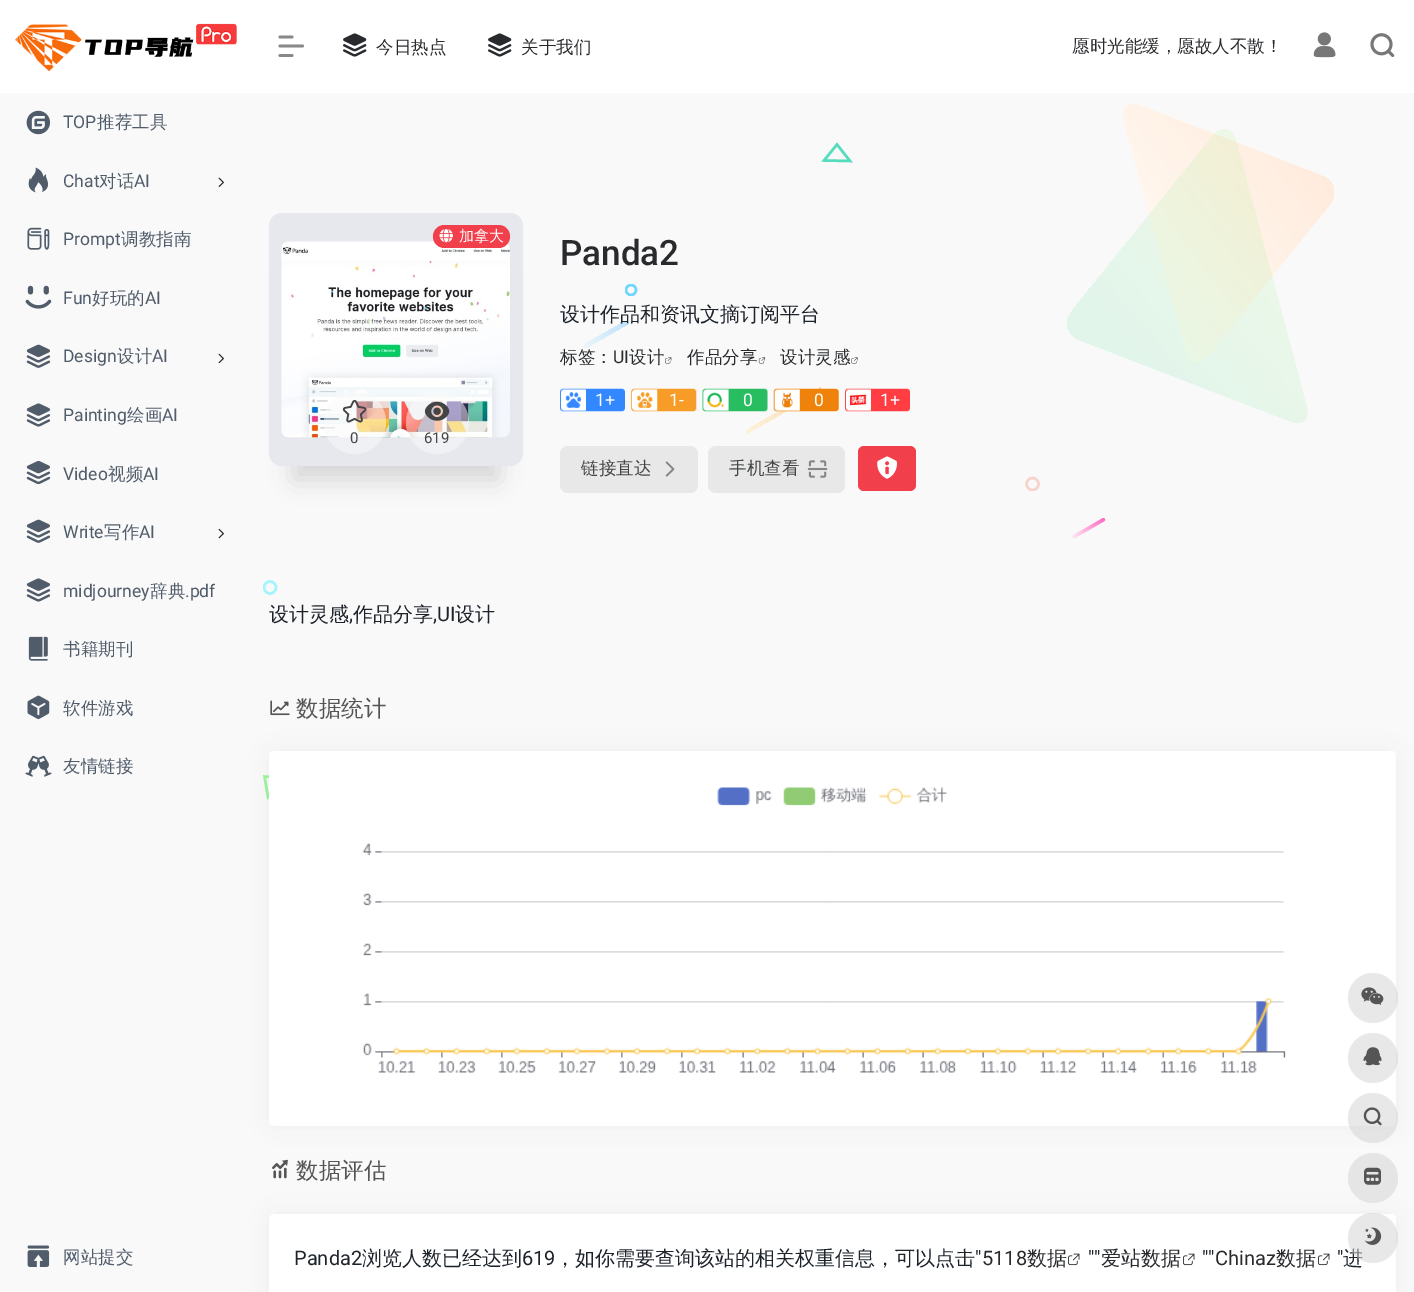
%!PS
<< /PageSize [1414 1292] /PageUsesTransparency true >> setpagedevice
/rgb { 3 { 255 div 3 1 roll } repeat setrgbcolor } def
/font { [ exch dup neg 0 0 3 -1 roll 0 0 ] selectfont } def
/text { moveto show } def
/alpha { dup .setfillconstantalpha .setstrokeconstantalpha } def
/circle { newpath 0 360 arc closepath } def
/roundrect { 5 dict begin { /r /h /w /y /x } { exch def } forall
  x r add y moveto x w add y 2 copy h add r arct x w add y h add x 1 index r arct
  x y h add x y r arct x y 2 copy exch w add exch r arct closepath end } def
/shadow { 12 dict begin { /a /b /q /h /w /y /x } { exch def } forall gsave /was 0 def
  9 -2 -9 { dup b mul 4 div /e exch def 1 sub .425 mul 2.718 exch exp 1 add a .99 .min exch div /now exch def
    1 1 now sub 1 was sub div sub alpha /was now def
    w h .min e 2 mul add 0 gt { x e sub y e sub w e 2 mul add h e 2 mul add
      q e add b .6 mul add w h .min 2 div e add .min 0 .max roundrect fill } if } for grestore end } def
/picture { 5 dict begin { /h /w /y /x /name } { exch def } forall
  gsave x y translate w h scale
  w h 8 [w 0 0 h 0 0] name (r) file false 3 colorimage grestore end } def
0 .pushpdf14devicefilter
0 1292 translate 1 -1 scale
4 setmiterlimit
249 249 249 rgb
0 0 1414 1292 rectfill
255 255 255 rgb
0 0 1414 93 rectfill
(img_01.rgb) 15 23 222 49 picture
(img_02.rgb) 26 110 25 25 picture
(img_03.rgb) 28 167 20 26 picture
(img_04.rgb) 218 177 6 10 picture
(img_05.rgb) 27 227 23 23 picture
(img_06.rgb) 25 285 27 24 picture
(img_07.rgb) 26 344 25 24 picture
(img_08.rgb) 218 353 6 11 picture
(img_09.rgb) 26 403 25 24 picture
(img_10.rgb) 26 460 25 25 picture
(img_07.rgb) 26 519 25 24 picture
(img_11.rgb) 218 528 6 11 picture
(img_09.rgb) 26 578 25 24 picture
(img_12.rgb) 28 636 20 25 picture
(img_13.rgb) 27 695 23 25 picture
(img_14.rgb) 25 755 27 22 picture
(img_15.rgb) 27 1245 23 22 picture
136 136 136 rgb
2.8 setlinewidth
1 setlinecap
1 setlinejoin
280 37 moveto 12 0 rlineto 280 46 moveto 22.5 0 rlineto 280 55.5 moveto 12 0 rlineto stroke
(img_16.rgb) 343 33 24 24 picture
(img_16.rgb) 488 33 24 24 picture
(img_17.rgb) 1313 32 23 26 picture
(img_18.rgb) 1370 33 25 25 picture
gsave 1186 350 moveto -62 -229 rlineto -3 -13 4 -20 17 -15 rcurveto 181 70 rlineto 13 5 16 17 8 28 rcurveto -122 151 rlineto -9 11 -19 9 -22 -5 rcurveto closepath eoclip newpath
<< /ShadingType 2 /ColorSpace /DeviceRGB /Coords [1280 104 1096 240] /Extend [true true] /Function << /FunctionType 2 /Domain [0 1] /C0 [1 0.922 0.867] /C1 [1 0.984 0.957] /N 1 >> >> shfill grestore
85 219 190 rgb
2.5 setlinewidth
0 setlinecap
0 setlinejoin
850 161 moveto -13 -16.5 rlineto -13 16 rlineto closepath stroke
0.11 alpha
gsave 1236 141 moveto 70 264 rlineto 4 14 -3 21 -16 16 rcurveto -210 -81 rlineto -13 -5 -17 -18 -8 -29 rcurveto 141 -175 rlineto 9 -11 19 -9 23 5 rcurveto closepath eoclip newpath
<< /ShadingType 2 /ColorSpace /DeviceRGB /Coords [1235 129 1033 299] /Extend [true true] /Function << /FunctionType 2 /Domain [0 1] /C0 [0.584 0.957 0.412] /C1 [0.082 0.816 0.431] /N 1 >> >> shfill grestore
gsave
625 284 13 12 rectclip
1 alpha
111 215 255 rgb
631 290 5 circle stroke
grestore
1 alpha
gsave 585 344 moveto 41 -23 rlineto 2 1 rlineto 2 2 -4 4 -7 6 rcurveto -35 20 rlineto -2 0 -2 -3 -1 -4 rcurveto closepath eoclip newpath
<< /ShadingType 2 /ColorSpace /DeviceRGB /Coords [585 347 628 322] /Extend [true true] /Function << /FunctionType 2 /Domain [0 1] /C0 [0.922 0.965 0.98] /C1 [0.745 0.886 0.98] /N 1 >> >> shfill grestore
gsave 747 430 moveto 72 -42 rlineto 2 -1 3 1 3 2 rcurveto -1 1 rlineto -73 42 rlineto -2 1 -3 -2 -1 -3 rcurveto closepath eoclip newpath
<< /ShadingType 2 /ColorSpace /DeviceRGB /Coords [746 432 822 389] /Extend [true true] /Function << /FunctionType 2 /Domain [0 1] /C0 [0.984 0.957 0.863] /C1 [0.984 0.847 0.694] /N 1 >> >> shfill grestore
gsave
1025 476 15 15 rectclip
248 211 202 rgb
1032.5 484 6 circle stroke
grestore
(img_19.rgb) 1072 518 34 21 picture
gsave
263 580 15 15 rectclip
164 243 253 rgb
270 587.5 6 circle stroke
grestore
152 246 155 rgb
285.5 777.5 moveto -21 -1 rlineto 3.5 20.5 rlineto closepath stroke
0 0 0 rgb
294 275 204 204 0 12.5 0.15 shadow
230 232 237 rgb
269 213 254 253 13 roundrect fill
(img_21.rgb) 281 241 229 197 picture
241 64 75 rgb
433 225 77 23 11.5 roundrect fill
(img_20.rgb) 439 228 14 15 picture
0.5 alpha
250 250 250 rgb
324 391 62 63 31 roundrect fill
1 alpha
(img_22.rgb) 342 400 25 23 picture
0.5 alpha
437.5 422.5 31.5 circle fill
1 alpha
(img_23.rgb) 424 401 26 20 picture
(img_24.rgb) 665 357 7 7 picture
(img_25.rgb) 758 357 8 7 picture
(img_26.rgb) 851 357 7 7 picture
(img_27.rgb) 560 388 65 24 picture
(img_28.rgb) 631 388 66 24 picture
(img_29.rgb) 702 388 66 24 picture
(img_30.rgb) 773 388 66 24 picture
(img_31.rgb) 845 388 65 24 picture
232 232 232 rgb
560 446 138 47 8 roundrect fill
(img_32.rgb) 665 461 10 16 picture
708 446 137 47 8 roundrect fill
(img_33.rgb) 807 460 21 18 picture
241 64 75 rgb
858 446 58 45 6 roundrect fill
(img_34.rgb) 877 456 20 23 picture
(img_35.rgb) 270 700 20 16 picture
158 158 158 rgb
275 758 1115 362 0 12.5 0.2 shadow
255 255 255 rgb
269 751 1127 375 5 roundrect fill
(img_36.rgb) 362 787 924 286 picture
(img_37.rgb) 272 1159 16 20 picture
158 158 158 rgb
275 1220 1115 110 0 12.5 0.2 shadow
255 255 255 rgb
269 1214 1127 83 5 roundrect fill
(img_38.rgb) 1068 1253 12 13 picture
(img_38.rgb) 1183 1253 12 13 picture
(img_38.rgb) 1318 1253 12 13 picture
0.5 alpha
210 210 210 rgb
1373 998 25 circle fill
1 alpha
(img_39.rgb) 1361 987 23 18 picture
0.5 alpha
1373 1058 25 circle fill
1 alpha
(img_40.rgb) 1363 1047 19 19 picture
0.5 alpha
1373 1118 25 circle fill
1 alpha
(img_41.rgb) 1363 1107 19 19 picture
229 229 229 rgb
1373 1178 25 circle fill
(img_42.rgb) 1364 1167 17 18 picture
/Roboto-Regular 17.5 font
81 92 107 rgb
(TOP) 63 128 text
/WenQuanYiZenHei-Medium 17.5 font
(推荐工具) 97 128 text
/Roboto-Regular 17.5 font
(Chat) 63 187 text
/WenQuanYiZenHei-Medium 17.5 font
(对话) 99 187 text
/Roboto-Regular 17.5 font
(AI) 134 187 text
(Prompt) 63 245 text
/WenQuanYiZenHei-Medium 17.5 font
(调教指南) 121 245 text
/Roboto-Regular 17.5 font
(Fun) 63 304 text
/WenQuanYiZenHei-Medium 17.5 font
(好玩的) 92 304 text
/Roboto-Regular 17.5 font
(AI) 145 304 text
(Design) 63 362 text
/WenQuanYiZenHei-Medium 17.5 font
(设计) 117 362 text
/Roboto-Regular 17.5 font
(AI) 152 362 text
(Painting) 63 421 text
/WenQuanYiZenHei-Medium 17.5 font
(绘画) 127 421 text
/Roboto-Regular 17.5 font
(AI) 162 421 text
(Video) 63 480 text
/WenQuanYiZenHei-Medium 17.5 font
(视频) 108 480 text
/Roboto-Regular 17.5 font
(AI) 143 480 text
(Write) 63 538 text
/WenQuanYiZenHei-Medium 17.5 font
(写作) 104 538 text
/Roboto-Regular 17.5 font
(AI) 139 538 text
(midjourney) 63 597 text
/WenQuanYiZenHei-Medium 17.5 font
(辞典) 150 597 text
/Roboto-Regular 17.5 font
(.pdf) 185 597 text
/WenQuanYiZenHei-Medium 17.5 font
(书籍期刊) 63 655 text
(软件游戏) 63 714 text
(友情链接) 63 772 text
(网站提交) 63 1263 text
40 42 45 rgb
(今日热点) 376 53 text
(关于我们) 521 53 text
(愿时光能缓，愿故人不散！) 1072 52 text
/WenQuanYiZenHei-Medium 15 font
255 255 255 rgb
(加拿大) 459 241 text
/Roboto-Regular 15 font
66 68 70 rgb
(0) 350 443 text
(619) 424 443 text
/Roboto-Medium 35 font
40 42 45 rgb
(Panda2) 560 265 text
/WenQuanYiZenHei-Medium 20 font
29 35 43 rgb
(设计作品和资讯文摘订阅平台) 560 321 text
/WenQuanYiZenHei-Medium 17.5 font
40 42 45 rgb
(标签：) 560 363 text
/Roboto-Regular 17.5 font
(UI) 613 363 text
/WenQuanYiZenHei-Medium 17.5 font
(设计) 629 363 text
(作品分享) 687 363 text
(设计灵感) 780 363 text
/Roboto-Regular 17.5 font
255 255 255 rgb
(1+) 595 406 text
(1-) 669 406 text
(0) 743 406 text
(0) 814 406 text
(1+) 880 406 text
/WenQuanYiZenHei-Medium 17.5 font
66 68 70 rgb
(链接直达) 581 474 text
(手机查看) 729 474 text
/WenQuanYiZenHei-Medium 20 font
29 35 43 rgb
(设计灵感) 269 621 text
/Roboto-Regular 20 font
(,) 349 621 text
/WenQuanYiZenHei-Medium 20 font
(作品分享) 353 621 text
/Roboto-Regular 20 font
(,UI) 433 621 text
/WenQuanYiZenHei-Medium 20 font
(设计) 455 621 text
/WenQuanYiZenHei-Medium 22.5 font
85 85 85 rgb
(数据统计) 296 716 text
(数据评估) 296 1178 text
/Roboto-Regular 20 font
29 35 43 rgb
(Panda2) 294 1265 text
/WenQuanYiZenHei-Medium 20 font
(浏览人数已经达到) 362 1265 text
/Roboto-Regular 20 font
(619) 522 1265 text
/WenQuanYiZenHei-Medium 20 font
(，如你需要查询该站的相关权重信息，可以点击) 555 1265 text
/Roboto-Regular 20 font
(") 975 1265 text
40 42 45 rgb
(5118) 982 1265 text
/WenQuanYiZenHei-Medium 20 font
(数据) 1027 1265 text
/Roboto-Regular 20 font
29 35 43 rgb
("") 1088 1265 text
/WenQuanYiZenHei-Medium 20 font
40 42 45 rgb
(爱站数据) 1101 1265 text
/Roboto-Regular 20 font
29 35 43 rgb
("") 1202 1265 text
40 42 45 rgb
(Chinaz) 1215 1265 text
/WenQuanYiZenHei-Medium 20 font
(数据) 1276 1265 text
/Roboto-Regular 20 font
29 35 43 rgb
(") 1337 1265 text
/WenQuanYiZenHei-Medium 20 font
(进) 1343 1265 text
0.5 alpha
210 210 210 rgb
1373 1238 25 circle fill
1 alpha
(img_43.rgb) 1364 1227 18 18 picture
.poppdf14devicefilter showpage
